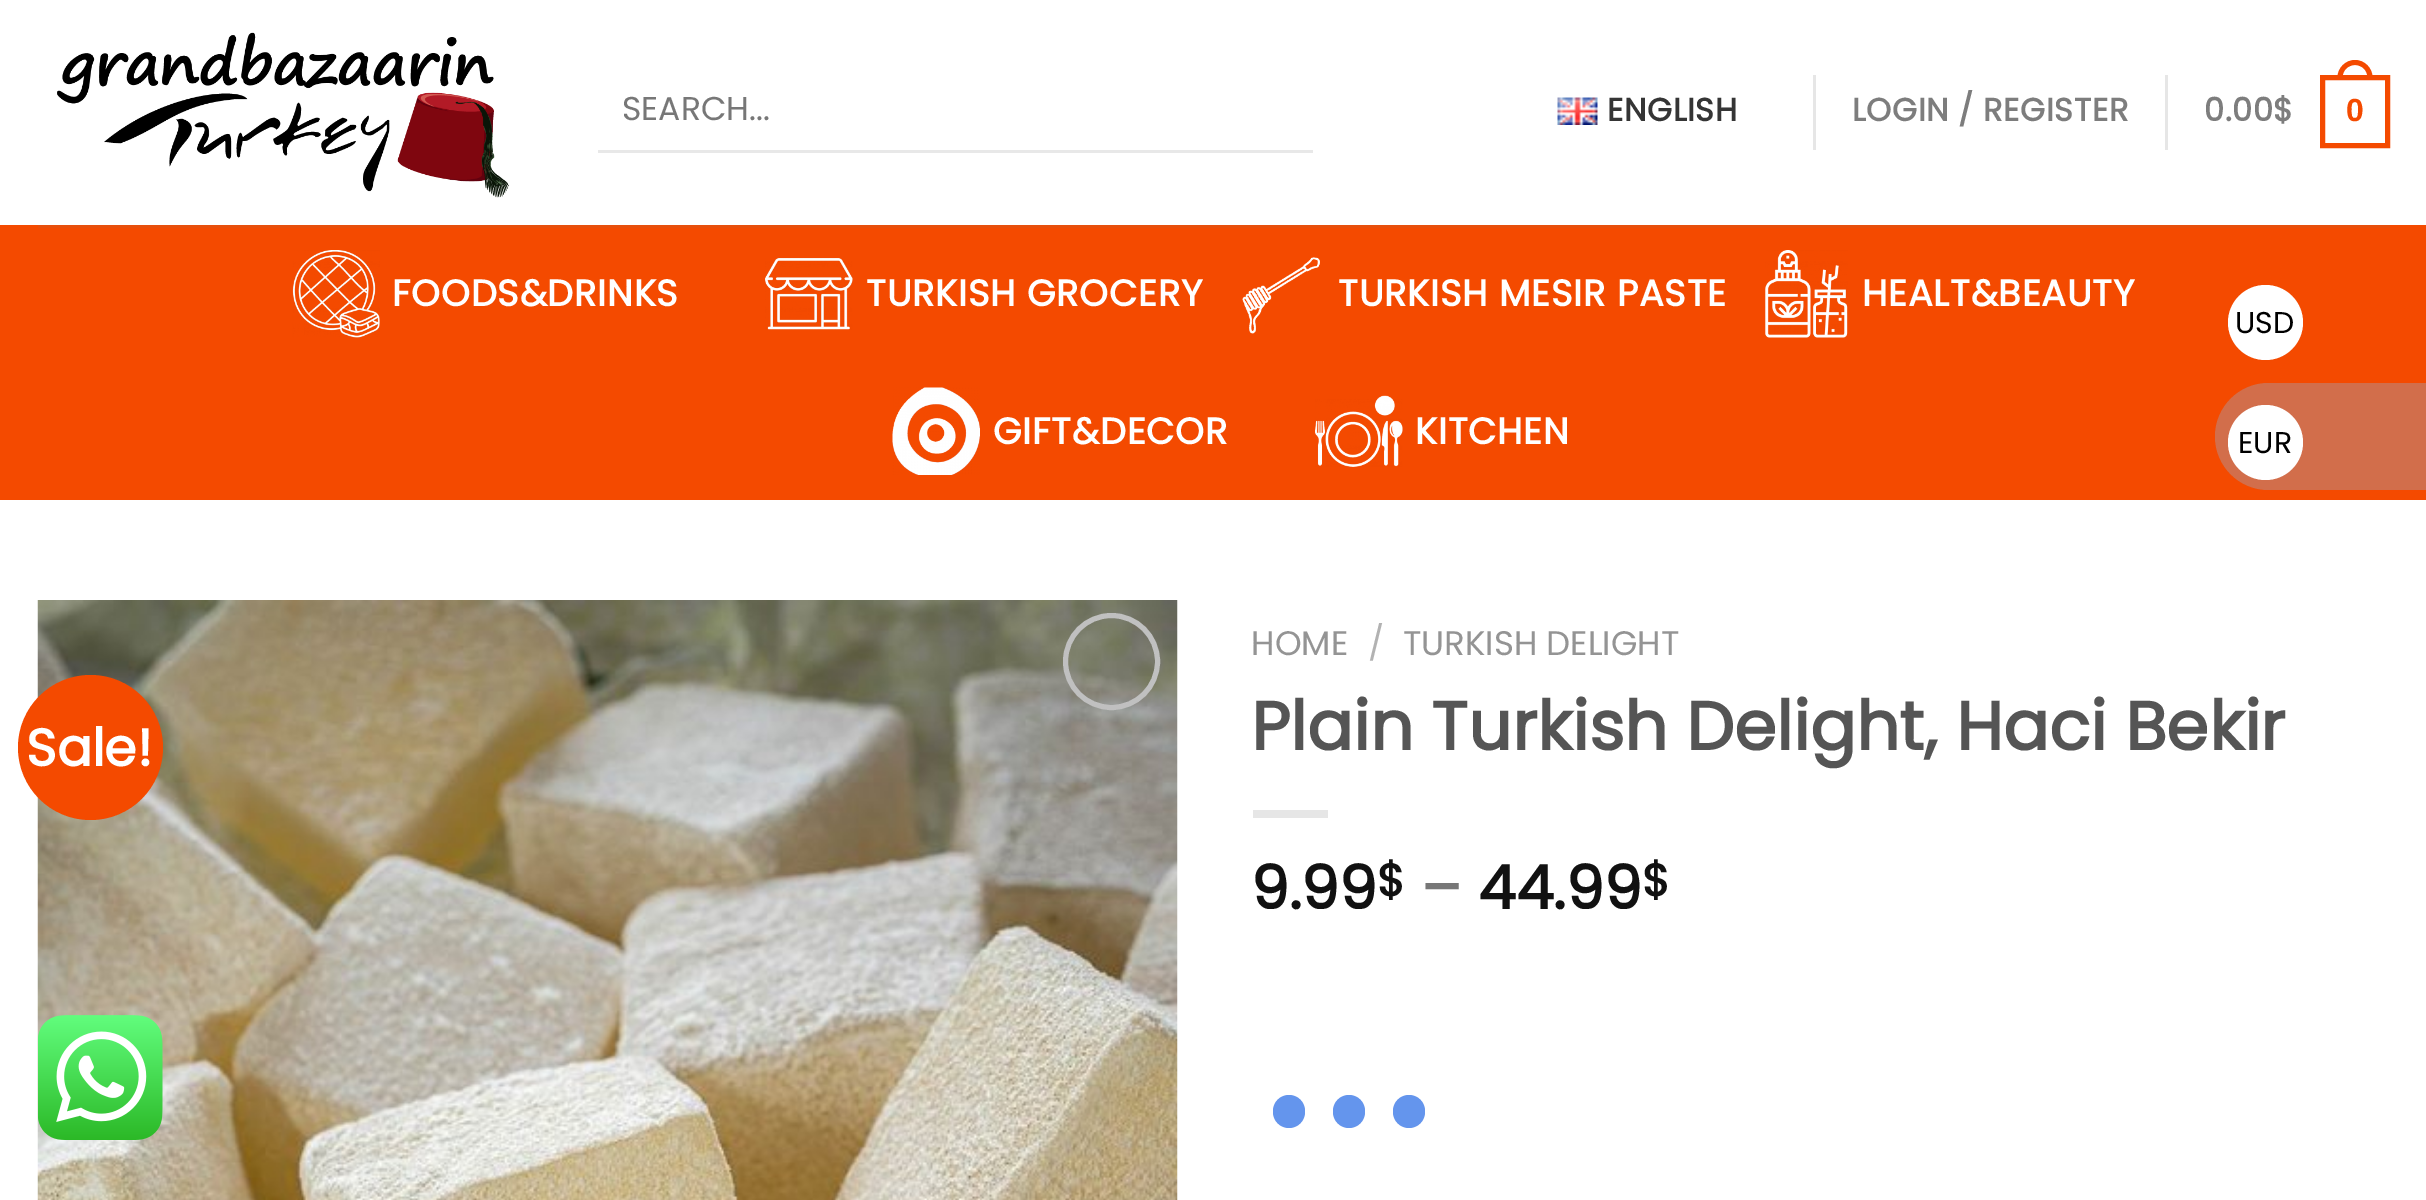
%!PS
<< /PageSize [2426 1200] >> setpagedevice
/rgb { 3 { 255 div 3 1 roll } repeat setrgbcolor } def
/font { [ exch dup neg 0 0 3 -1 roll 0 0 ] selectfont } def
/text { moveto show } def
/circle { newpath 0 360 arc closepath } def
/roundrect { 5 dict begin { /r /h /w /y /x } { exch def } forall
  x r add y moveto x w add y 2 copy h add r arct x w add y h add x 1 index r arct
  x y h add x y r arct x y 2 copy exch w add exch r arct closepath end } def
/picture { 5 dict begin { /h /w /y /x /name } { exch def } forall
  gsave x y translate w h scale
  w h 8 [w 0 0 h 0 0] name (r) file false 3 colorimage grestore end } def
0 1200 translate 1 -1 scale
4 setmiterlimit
255 255 255 rgb
0 0 2426 1200 rectfill
(img_01.rgb) 57 32 452 166 picture
232 232 232 rgb
598 150 715 3 rectfill
(img_02.rgb) 1557 97 41 28 picture
230 230 230 rgb
1813 75 3 75 rectfill
2165 75 3 75 rectfill
244 74 0 rgb
5 setlinewidth
2322.5 77.5 65 68 rectstroke
2355 60 moveto 9.5 0 17.5 8 17.5 17.5 rcurveto 0 2.5 rlineto -35 0 rlineto 0 -2.5 rlineto 0 -9.5 8 -17.5 17.5 -17.5 rcurveto closepath 2355 65 moveto 7 0 12.5 5.5 12.5 12.5 rcurveto 0 2.5 rlineto -25 0 rlineto 0 -2.5 rlineto 0 -7 5.5 -12.5 12.5 -12.5 rcurveto closepath eofill
0 225 2426 275 rectfill
231 79 12 rgb
38 225 2352 3 rectfill
(img_03.rgb) 292 250 88 88 picture
(img_04.rgb) 765 258 88 72 picture
(img_05.rgb) 1242 257 78 77 picture
(img_06.rgb) 1765 250 83 88 picture
(img_07.rgb) 892 387 88 88 picture
(img_08.rgb) 1315 395 88 72 picture
(img_09.rgb) 37 600 1141 600 picture
192 192 192 rgb
1111.5 661.5 46 circle stroke
244 74 0 rgb
90.5 747.5 72.5 circle fill
230 230 230 rgb
1253 810 75 8 rectfill
100 149 237 rgb
1273 1095 32 33 16 roundrect fill
1333 1095 32 33 16 roundrect fill
1393 1095 32 33 16 roundrect fill
255 255 255 rgb
2265.5 322.5 37.5 circle fill
210 110 75 rgb
2268.5 383 moveto 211.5 0 rlineto 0 107 rlineto -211.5 0 rlineto -29.5 0 -53.5 -24 -53.5 -53.5 rcurveto 0 -29.5 24 -53.5 53.5 -53.5 rcurveto closepath fill
255 255 255 rgb
2265.5 442.5 37.5 circle fill
(img_10.rgb) 38 1015 125 125 picture
/Poppins-Regular 33 font
119 119 119 rgb
(SEARCH...) 622 120 text
/Poppins-Bold 32 font
53 53 53 rgb
1607 121 moveto 0.6 0 (ENGLISH) ashow
125 125 125 rgb
1852 121 moveto 0.6 0 (LOGIN / REGISTER) ashow
2204 121 moveto 0.6 0 (0.00$) ashow
/LiberationSans-Bold 32 font
244 74 0 rgb
2346 121 moveto 0.6 0 (0) ashow
/Poppins-Bold 36.75 font
255 255 255 rgb
392 306 moveto 0.75 0 (FOODS&DRINKS) ashow
866 306 moveto 0.75 0 (TURKISH GROCERY) ashow
1338 306 moveto 0.75 0 (TURKISH MESIR PASTE) ashow
1862 306 moveto 0.75 0 (HEALT&BEAUTY) ashow
993 444 moveto 0.75 0 (GIFT&DECOR) ashow
1415 444 moveto 0.75 0 (KITCHEN) ashow
/Poppins-Bold 52 font
(Sale!) 26 766 text
/Poppins-Regular 34 font
148 148 148 rgb
(HOME) 1251 655 text
178 178 178 rgb
(/) 1368 655 text
148 148 148 rgb
(TURKISH DELIGHT) 1403 655 text
/Poppins-Bold 68 font
85 85 85 rgb
(Plain Turkish Delight, Haci Bekir) 1251 750 text
/Poppins-Bold 60 font
17 17 17 rgb
(9.99) 1251 909 text
/Poppins-Bold 45 font
($) 1377 896 text
/Poppins-Bold 60 font
119 119 119 rgb
(–) 1421 909 text
17 17 17 rgb
(44.99) 1478 909 text
/Poppins-Bold 45 font
($) 1642 896 text
/Poppins-Regular 30 font
0 0 0 rgb
(USD) 2235 333 text
(EUR) 2238 453 text
showpage
